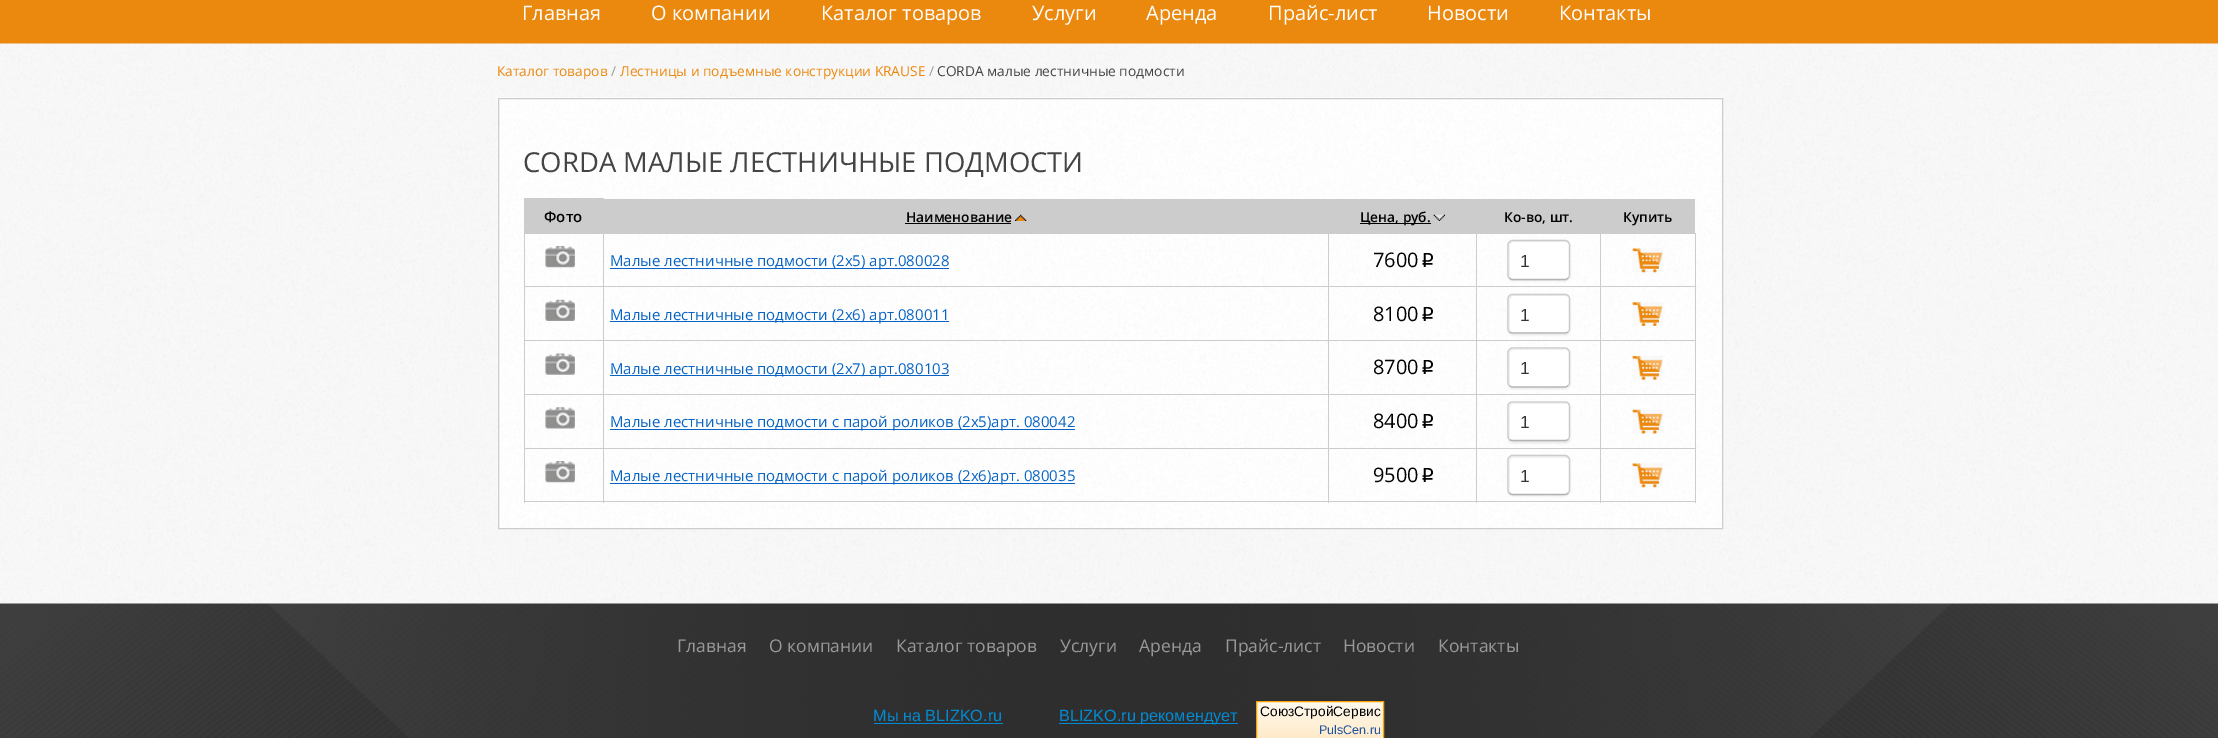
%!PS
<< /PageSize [2218 738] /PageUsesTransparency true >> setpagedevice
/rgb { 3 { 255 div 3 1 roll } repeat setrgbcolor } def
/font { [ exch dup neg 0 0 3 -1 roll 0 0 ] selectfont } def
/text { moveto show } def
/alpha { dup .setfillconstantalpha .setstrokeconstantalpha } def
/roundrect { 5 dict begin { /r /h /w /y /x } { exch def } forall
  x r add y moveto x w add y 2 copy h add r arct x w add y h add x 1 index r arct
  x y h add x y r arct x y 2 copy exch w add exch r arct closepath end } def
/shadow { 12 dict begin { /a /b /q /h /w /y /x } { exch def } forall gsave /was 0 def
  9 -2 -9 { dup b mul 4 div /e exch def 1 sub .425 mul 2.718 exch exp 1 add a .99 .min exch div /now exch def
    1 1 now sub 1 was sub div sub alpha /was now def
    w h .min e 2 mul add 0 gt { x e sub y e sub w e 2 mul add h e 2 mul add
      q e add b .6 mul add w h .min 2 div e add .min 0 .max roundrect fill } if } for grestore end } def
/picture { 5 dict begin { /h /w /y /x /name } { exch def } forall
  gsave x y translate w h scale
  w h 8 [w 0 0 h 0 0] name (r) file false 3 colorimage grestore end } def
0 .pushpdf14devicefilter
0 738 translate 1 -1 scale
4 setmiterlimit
247 247 247 rgb
0 0 2218 738 rectfill
235 136 14 rgb
0 0 2218 44 rectfill
(img_01.rgb) 0 43 2218 560 picture
(img_02.rgb) 497 97 1226 432 picture
204 204 204 rgb
498.5 98.5 1224 430 rectstroke
524 199 1171 35 rectfill
524 198 80 1 rectfill
0 0 0 rgb
905 223 106 1 rectfill
(img_03.rgb) 1015 214 12 7 picture
1360 223 71 1 rectfill
(img_04.rgb) 1433 214 12 7 picture
(img_05.rgb) 545 246 30 22 picture
204 204 204 rgb
1600 286 96 1 rectfill
1600 340 96 1 rectfill
1600 394 96 1 rectfill
1600 448 96 1 rectfill
1695 448 1 55 rectfill
1600 501 96 1 rectfill
1600 448 1 55 rectfill
1476 448 125 1 rectfill
1600 394 1 55 rectfill
1476 394 125 1 rectfill
1600 340 1 55 rectfill
1476 340 125 1 rectfill
1600 286 1 55 rectfill
1476 286 125 1 rectfill
1476 501 125 1 rectfill
1476 448 1 55 rectfill
1328 448 150 1 rectfill
1476 394 1 55 rectfill
1328 394 150 1 rectfill
1476 340 1 55 rectfill
1328 340 150 1 rectfill
1476 286 1 55 rectfill
1328 286 150 1 rectfill
1328 501 150 1 rectfill
1328 448 1 55 rectfill
603 448 726 1 rectfill
1328 394 1 55 rectfill
603 394 726 1 rectfill
1328 340 1 55 rectfill
603 340 726 1 rectfill
1328 286 1 55 rectfill
603 286 726 1 rectfill
603 501 726 1 rectfill
603 448 1 55 rectfill
524 448 80 1 rectfill
603 394 1 55 rectfill
524 394 80 1 rectfill
603 340 1 55 rectfill
524 340 80 1 rectfill
603 286 1 55 rectfill
524 286 80 1 rectfill
603 233 1 55 rectfill
7 100 196 rgb
610 268 339 1 rectfill
204 204 204 rgb
1328 233 1 55 rectfill
1476 233 1 55 rectfill
0 0 0 rgb
1508 241 62 40 5 1 0.1 shadow
255 255 255 rgb
1508 240 62 40 5 roundrect fill
241 241 241 rgb
1514 242 moveto 52 0 rlineto 2 1 rlineto 0 -1 -2 -2 -3 -2 rcurveto -52 0 rlineto -2 0 -4 2 -4 4 rcurveto 0 30 rlineto 0 1 1 3 2 3 rcurveto -1 -2 rlineto 0 -30 rlineto 0 -2 2 -4 4 -4 rcurveto closepath fill
179 179 179 rgb
1.2 setlinewidth
1568 278 moveto -0.5 1 -2 1.5 -3 1.5 rcurveto -52.5 0 rlineto -1 0 -2.5 -0.5 -3 -1.5 rcurveto stroke
204 204 204 rgb
1509.5 278 moveto -1 -0.5 -1.5 -2 -1.5 -3 rcurveto 0 -30 rlineto 0 -1 0.5 -2.5 1.5 -3 rcurveto 0.5 -1 2 -1.5 3 -1.5 rcurveto 52.5 0 rlineto 1 0 2.5 0.5 3 1.5 rcurveto 1 0.5 1.5 2 1.5 3 rcurveto 0 30 rlineto 0 1 -0.5 2.5 -1.5 3 rcurveto stroke
1695 394 1 55 rectfill
1695 340 1 55 rectfill
1695 286 1 55 rectfill
1695 233 1 55 rectfill
1600 233 1 55 rectfill
(img_06.rgb) 1632 248 31 25 picture
524 501 80 1 rectfill
524 448 1 55 rectfill
524 394 1 55 rectfill
524 340 1 55 rectfill
524 233 1 108 rectfill
(img_07.rgb) 545 299 30 22 picture
7 100 196 rgb
610 321 339 1 rectfill
0 0 0 rgb
1508 295 62 40 5 1 0.1 shadow
255 255 255 rgb
1508 294 62 40 5 roundrect fill
241 241 241 rgb
1514 296 moveto 52 0 rlineto 2 1 rlineto 0 -1 -2 -2 -3 -2 rcurveto -52 0 rlineto -2 0 -4 2 -4 4 rcurveto 0 30 rlineto 0 1 1 3 2 3 rcurveto -1 -2 rlineto 0 -30 rlineto 0 -2 2 -4 4 -4 rcurveto closepath fill
179 179 179 rgb
1568 332 moveto -0.5 0.5 -2 1 -3 1 rcurveto -52.5 0 rlineto -1 0 -2.5 -0.5 -3 -1 rcurveto stroke
204 204 204 rgb
1509.5 332 moveto -1 -1 -1.5 -2 -1.5 -3 rcurveto 0 -30 rlineto 0 -1.5 0.5 -2.5 1.5 -3.5 rcurveto 0.5 -0.5 2 -1 3 -1 rcurveto 52.5 0 rlineto 1 0 2.5 0.5 3 1 rcurveto 1 1 1.5 2 1.5 3.5 rcurveto 0 30 rlineto 0 1 -0.5 2 -1.5 3 rcurveto stroke
(img_08.rgb) 1632 302 31 24 picture
(img_09.rgb) 545 353 30 22 picture
7 100 196 rgb
610 375 339 1 rectfill
0 0 0 rgb
1508 349 62 40 5 1 0.1 shadow
255 255 255 rgb
1508 348 62 40 5 roundrect fill
241 241 241 rgb
1514 350 moveto 52 0 rlineto 2 1 rlineto 0 -1 -2 -2 -3 -2 rcurveto -52 0 rlineto -2 0 -4 2 -4 4 rcurveto 0 29 rlineto 0 1 0 2 1 3 rcurveto 0 -26 rlineto 0 -3 -1 -9 4 -9 rcurveto closepath fill
179 179 179 rgb
1568 385.5 moveto -0.5 1 -2 1.5 -3 1.5 rcurveto -52.5 0 rlineto -1 0 -2.5 -0.5 -3 -1.5 rcurveto stroke
204 204 204 rgb
1509.5 385.5 moveto -1 -0.5 -1.5 -2 -1.5 -3 rcurveto 0 -30 rlineto 0 -1 0.5 -2.5 1.5 -3 rcurveto 0.5 -1 2 -1.5 3 -1.5 rcurveto 52.5 0 rlineto 1 0 2.5 0.5 3 1.5 rcurveto 1 0.5 1.5 2 1.5 3 rcurveto 0 30 rlineto 0 1 -0.5 2.5 -1.5 3 rcurveto stroke
(img_10.rgb) 1632 356 31 24 picture
(img_11.rgb) 545 407 30 22 picture
7 100 196 rgb
610 429 465 1 rectfill
0 0 0 rgb
1508 403 62 40 5 1 0.1 shadow
255 255 255 rgb
1508 401 62 40 5 roundrect fill
241 241 241 rgb
1514 404 moveto 52 0 rlineto 2 0 rlineto -1 0 -2 -1 -3 -1 rcurveto -52 0 rlineto -2 0 -4 2 -4 4 rcurveto 0 29 rlineto 0 1 0 2 1 3 rcurveto 0 -26 rlineto 0 -3 -1 -9 4 -9 rcurveto closepath fill
179 179 179 rgb
1568 439.5 moveto -0.5 0.5 -2 1 -3 1 rcurveto -52.5 0 rlineto -1 0 -2.5 -0.5 -3 -1 rcurveto stroke
204 204 204 rgb
1509.5 439.5 moveto -1 -1 -1.5 -2 -1.5 -3.5 rcurveto 0 -30 rlineto 0 -1 0.5 -2 1.5 -3 rcurveto 0.5 -0.5 2 -1 3 -1 rcurveto 52.5 0 rlineto 1 0 2.5 0.5 3 1 rcurveto 1 1 1.5 2 1.5 3 rcurveto 0 30 rlineto 0 1.5 -0.5 2.5 -1.5 3.5 rcurveto stroke
(img_12.rgb) 1632 409 31 25 picture
(img_13.rgb) 545 461 30 22 picture
7 100 196 rgb
610 483 465 1 rectfill
0 0 0 rgb
1508 456 62 40 5 1 0.1 shadow
255 255 255 rgb
1508 455 62 40 5 roundrect fill
241 241 241 rgb
1514 458 moveto 52 0 rlineto 3 1 rlineto -1 -2 -2 -3 -4 -3 rcurveto -52 0 rlineto -2 0 -4 2 -4 4 rcurveto 0 30 rlineto 0 1 1 3 2 3 rcurveto -1 -2 rlineto 0 -30 rlineto 0 -2 2 -3 4 -3 rcurveto closepath fill
179 179 179 rgb
1568 493 moveto -0.5 1 -2 1.5 -3 1.5 rcurveto -52.5 0 rlineto -1 0 -2.5 -0.5 -3 -1.5 rcurveto stroke
204 204 204 rgb
1509.5 493 moveto -1 -0.5 -1.5 -2 -1.5 -3 rcurveto 0 -30 rlineto 0 -1 0.5 -2.5 1.5 -3 rcurveto 0.5 -1 2 -1.5 3 -1.5 rcurveto 52.5 0 rlineto 1 0 2.5 0.5 3 1.5 rcurveto 1 0.5 1.5 2 1.5 3 rcurveto 0 30 rlineto 0 1 -0.5 2.5 -1.5 3 rcurveto stroke
(img_14.rgb) 1632 463 31 25 picture
(img_15.rgb) 0 603 2218 135 picture
0 139 212 rgb
874 723 129 1 rectfill
1059 723 179 1 rectfill
(img_16.rgb) 1257 702 126 36 picture
255 162 0 rgb
1 setlinewidth
1256.5 701.5 127 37 rectstroke
/OpenSans-Regular 20 font
255 255 255 rgb
(Главная) 522 20 text
(О компании) 651 20 text
(Каталог товаров) 821 20 text
(Услуги) 1032 20 text
(Аренда) 1146 20 text
(Прайс-лист) 1268 20 text
(Новости) 1427 20 text
(Контакты) 1559 20 text
/OpenSans-Regular 13.75 font
235 136 14 rgb
(Каталог товаров) 497 76 text
153 153 153 rgb
(/) 611 76 text
235 136 14 rgb
(Лестницы и подъемные конструкции KRAUSE) 620 76 text
153 153 153 rgb
(/) 929 76 text
68 68 68 rgb
(CORDA малые лестничные подмости) 937 76 text
/OpenSans-Regular 27.5 font
(CORDA МАЛЫЕ ЛЕСТНИЧНЫЕ ПОДМОСТИ) 523 172 text
/OpenSans-SemiBold 15 font
0 0 0 rgb
(Фото) 544 222 text
/OpenSans-SemiBold 13.75 font
(Наименование) 906 222 text
(Цена, руб.) 1360 222 text
(Ко-во, шт.) 1504 222 text
(Купить) 1623 222 text
/OpenSans-Regular 15 font
7 100 196 rgb
(Малые лестничные подмости \(2х5\) арт.080028) 610 266 text
/OpenSans-Regular 20 font
0 0 0 rgb
(7600) 1373 267 text
/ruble-Regular 20 font
(p) 1419 267 text
/LiberationSans-Regular 17.5 font
51 51 51 rgb
(1) 1520 267 text
/OpenSans-Regular 15 font
7 100 196 rgb
(Малые лестничные подмости \(2х6\) арт.080011) 610 320 text
/OpenSans-Regular 20 font
0 0 0 rgb
(8100) 1373 321 text
/ruble-Regular 20 font
(p) 1419 321 text
/LiberationSans-Regular 17.5 font
51 51 51 rgb
(1) 1520 321 text
/OpenSans-Regular 15 font
7 100 196 rgb
(Малые лестничные подмости \(2х7\) арт.080103) 610 374 text
/OpenSans-Regular 20 font
0 0 0 rgb
(8700) 1373 374 text
/ruble-Regular 20 font
(p) 1419 374 text
/LiberationSans-Regular 17.5 font
51 51 51 rgb
(1) 1520 374 text
/OpenSans-Regular 15 font
7 100 196 rgb
(Малые лестничные подмости с парой роликов \(2х5\)арт. 080042) 610 427 text
/OpenSans-Regular 20 font
0 0 0 rgb
(8400) 1373 428 text
/ruble-Regular 20 font
(p) 1419 428 text
/LiberationSans-Regular 17.5 font
51 51 51 rgb
(1) 1520 428 text
/OpenSans-Regular 15 font
7 100 196 rgb
(Малые лестничные подмости с парой роликов \(2х6\)арт. 080035) 610 481 text
/OpenSans-Regular 20 font
0 0 0 rgb
(9500) 1373 482 text
/ruble-Regular 20 font
(p) 1419 482 text
/LiberationSans-Regular 17.5 font
51 51 51 rgb
(1) 1520 482 text
/OpenSans-Regular 17.5 font
153 153 153 rgb
(Главная) 677 652 text
(О компании) 769 652 text
(Каталог товаров) 896 652 text
(Услуги) 1060 652 text
(Аренда) 1139 652 text
(Прайс-лист) 1225 652 text
(Новости) 1343 652 text
(Контакты) 1438 652 text
/LiberationSans-Regular 16.25 font
0 139 212 rgb
(Мы на BLIZKO.ru) 873 721 text
(BLIZKO.ru рекомендует) 1059 721 text
/LiberationSans-Regular 13.75 font
0 0 0 rgb
(СоюзСтройСервис) 1260 716 text
/LiberationSans-Regular 12.5 font
28 83 162 rgb
(PulsCen.ru) 1319 734 text
.poppdf14devicefilter showpage
